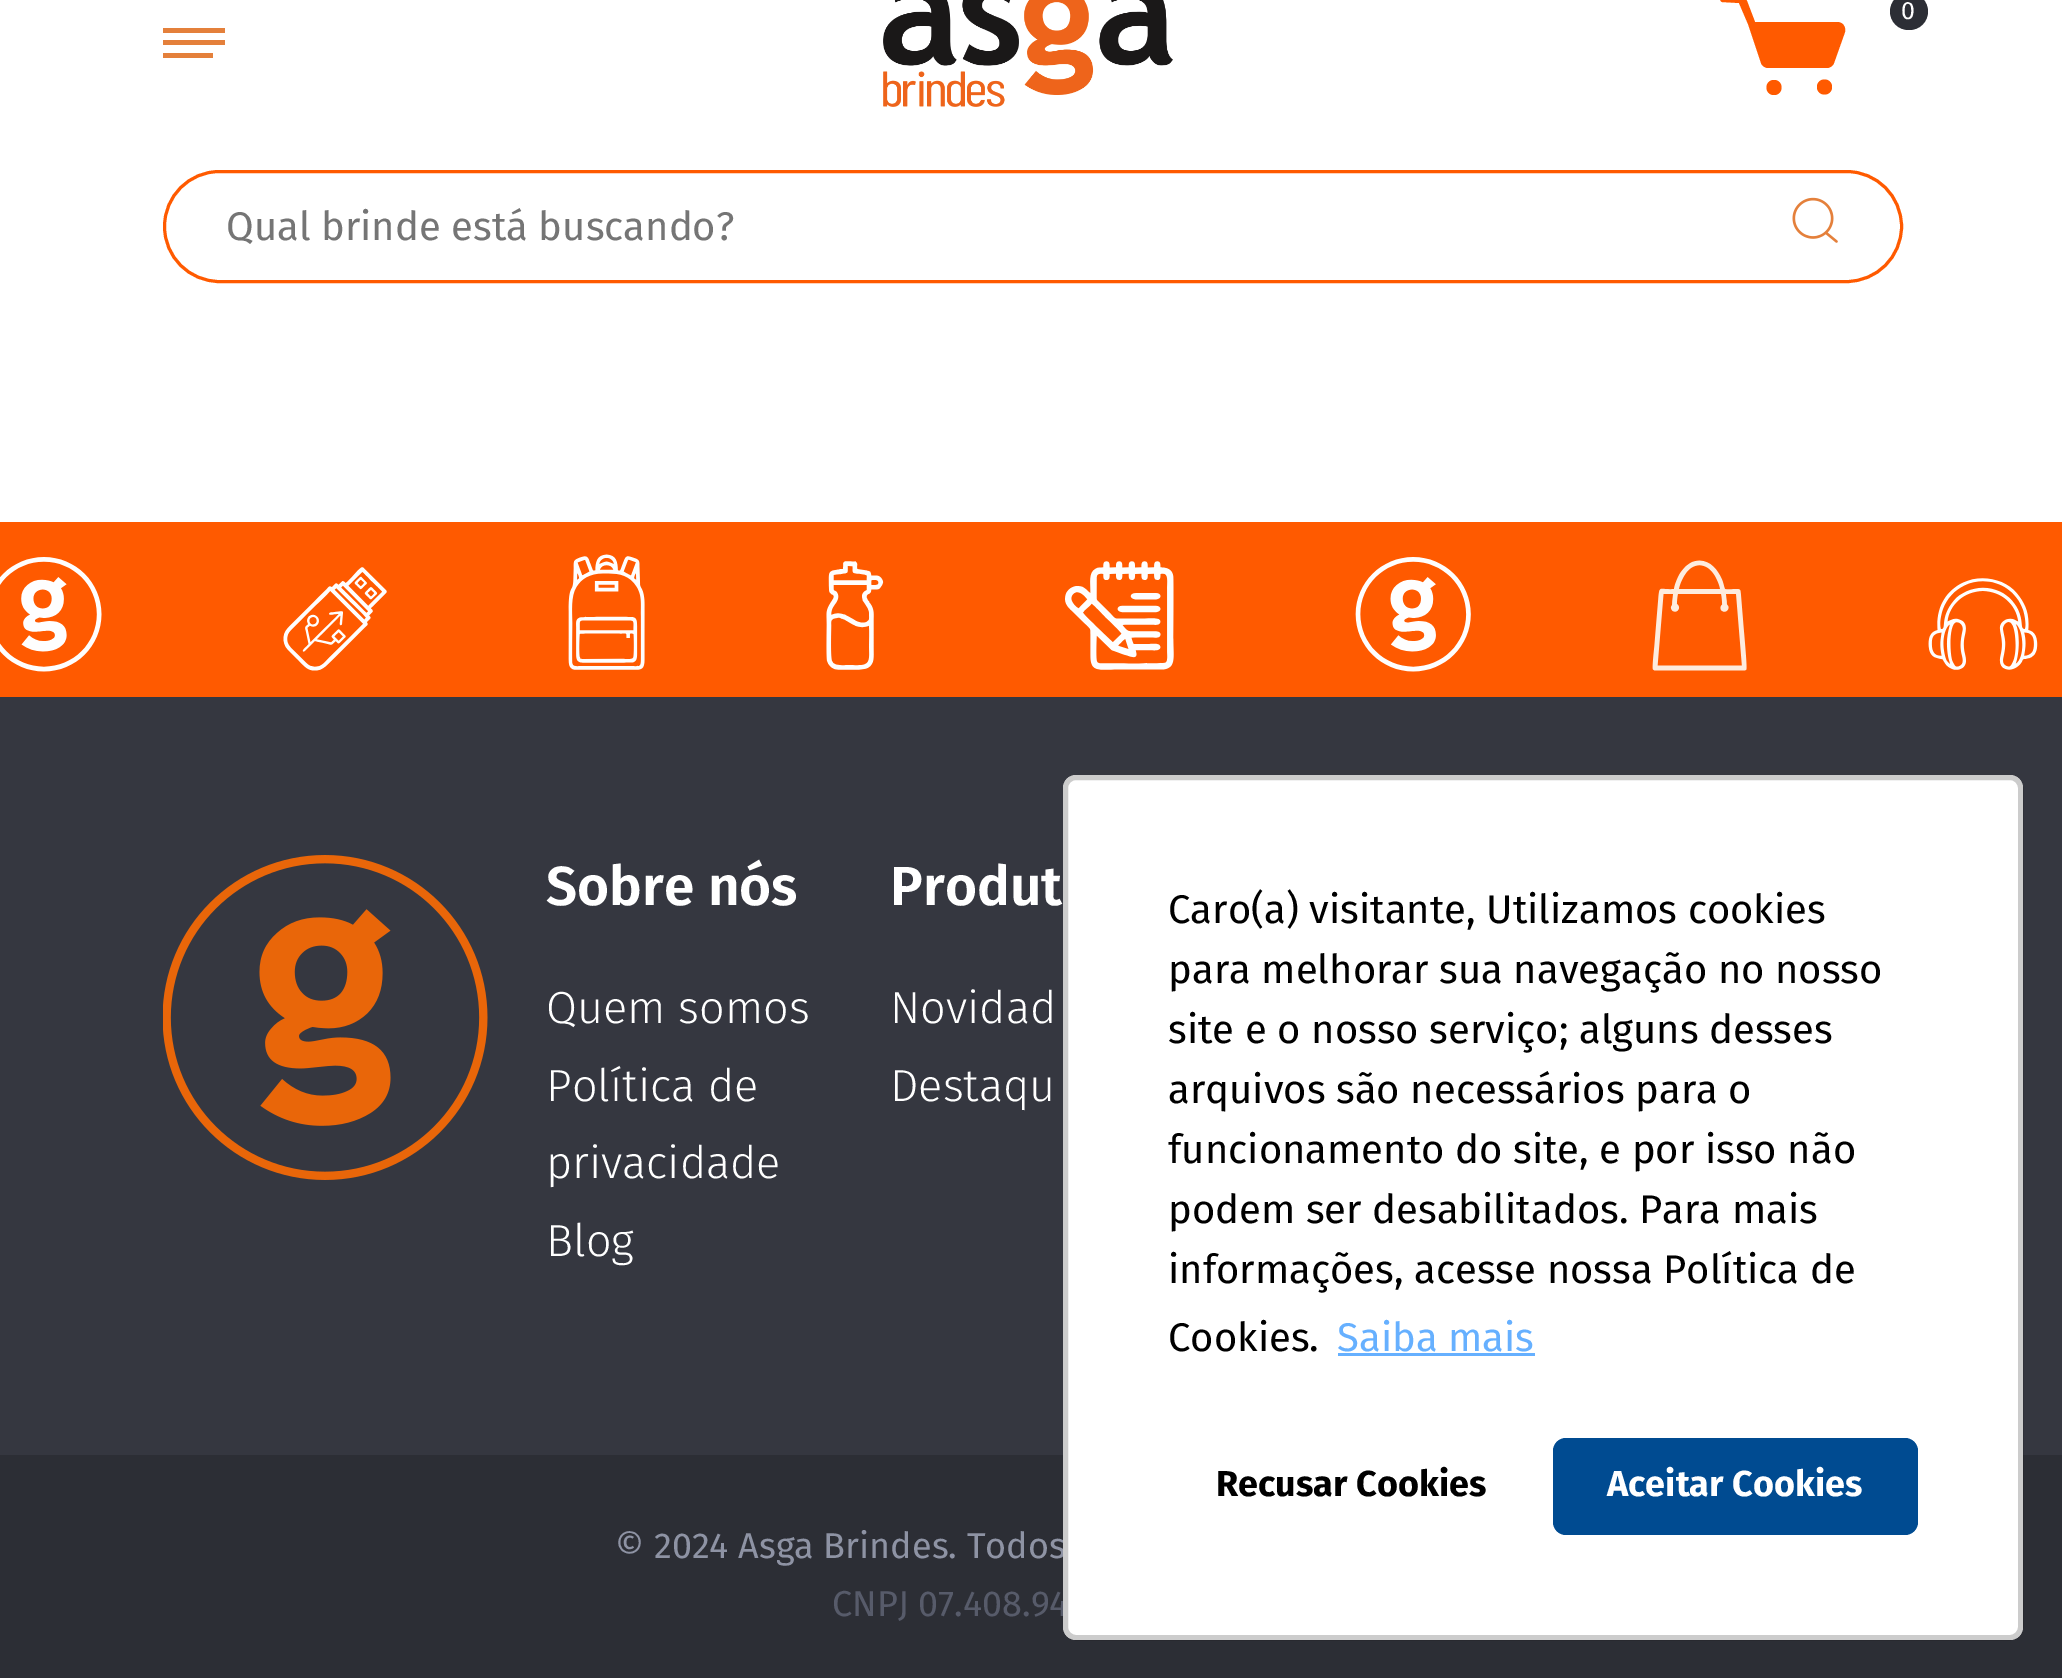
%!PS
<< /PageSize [2062 1678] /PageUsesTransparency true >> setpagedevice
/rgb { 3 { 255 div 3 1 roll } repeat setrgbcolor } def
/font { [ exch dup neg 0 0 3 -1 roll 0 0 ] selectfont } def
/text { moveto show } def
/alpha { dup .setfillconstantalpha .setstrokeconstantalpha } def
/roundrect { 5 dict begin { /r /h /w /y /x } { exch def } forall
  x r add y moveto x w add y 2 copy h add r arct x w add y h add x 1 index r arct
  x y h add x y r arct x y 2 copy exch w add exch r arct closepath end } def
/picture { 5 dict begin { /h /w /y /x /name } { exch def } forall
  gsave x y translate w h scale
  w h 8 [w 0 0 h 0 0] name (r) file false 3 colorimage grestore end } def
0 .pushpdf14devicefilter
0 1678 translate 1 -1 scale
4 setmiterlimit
255 255 255 rgb
0 0 2062 1678 rectfill
(img_01.rgb) 883 0 290 107 picture
255 90 0 rgb
1724 -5 moveto -4 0 -5 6 -2 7 rcurveto 17 1 rlineto 9 21 rlineto 13 39 rlineto 1 3 4 5 7 5 rcurveto 59 0 rlineto 3 0 6 -2 7 -5 rcurveto 11 -31 rlineto 1 -5 -2 -10 -8 -10 rcurveto -82 0 rlineto -8 -21 rlineto -3 -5 -3 -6 -9 -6 rcurveto closepath 1817 87 moveto 0 -10 15 -10 15 0 rcurveto 0 10 -15 10 -15 0 rcurveto closepath 1774 80 moveto -10 0 -10 15 0 15 rcurveto 10 0 10 -15 0 -15 rcurveto closepath eofill
44 46 53 rgb
1890 -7 38 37 18.5 roundrect fill
228 128 59 rgb
163 28 62 5 rectfill
163 40 62 5 rectfill
163 53 50 5 rectfill
255 90 0 rgb
3 setlinewidth
164.5 171.5 1737 110 55 roundrect stroke
(img_02.rgb) 1792 197 46 46 picture
(img_03.rgb) 0 522 2062 175 picture
53 55 64 rgb
0 697 2062 758 rectfill
(img_04.rgb) 163 855 325 325 picture
44 46 53 rgb
0 1455 2062 223 rectfill
/FiraSans-Regular 25 font
255 255 255 rgb
(0) 1901 19 text
/FiraSans-Regular 40 font
117 117 117 rgb
(Qual brinde está buscando?) 226 240 text
/FiraSans-SemiBold 55 font
255 255 255 rgb
(Sobre nós) 546 905 text
/FiraSans-Light 45 font
(Quem somos) 546 1023 text
(Política de) 546 1101 text
(privacidade) 546 1178 text
(Blog) 546 1256 text
/FiraSans-SemiBold 55 font
(Produt) 890 905 text
/FiraSans-Light 45 font
(Novidad) 890 1023 text
(Destaqu) 890 1101 text
/FiraSans-Regular 36 font
142 147 164 rgb
(© 2024 Asga Brindes. Todos) 615 1558 text
87 91 106 rgb
(CNPJ 07.408.94) 832 1616 text
0.2 alpha
0 0 0 rgb
5 setlinewidth
1065.5 777.5 955 860 10.5 roundrect stroke
1 alpha
255 255 255 rgb
1063 775 960 865 13 roundrect fill
0.2 alpha
0 0 0 rgb
1065.5 777.5 955 860 10.5 roundrect stroke
/FiraSans-Regular 40 font
1 alpha
(Caro\(a\) visitante, Utilizamos cookies) 1168 923 text
(para melhorar sua navegação no nosso) 1168 983 text
(site e o nosso serviço; alguns desses) 1168 1043 text
(arquivos são necessários para o) 1168 1103 text
(funcionamento do site, e por isso não) 1168 1163 text
(podem ser desabilitados. Para mais) 1168 1223 text
(informações, acesse nossa Política de) 1168 1283 text
(Cookies.) 1168 1351 text
102 176 255 rgb
(Saiba mais) 1337 1351 text
1338 1353 197 3 rectfill
/FiraSans-Bold 36 font
0 0 0 rgb
(Recusar Cookies) 1216 1496 text
0 75 145 rgb
1553 1438 365 97 13 roundrect fill
255 255 255 rgb
(Aceitar Cookies) 1607 1496 text
.poppdf14devicefilter showpage
